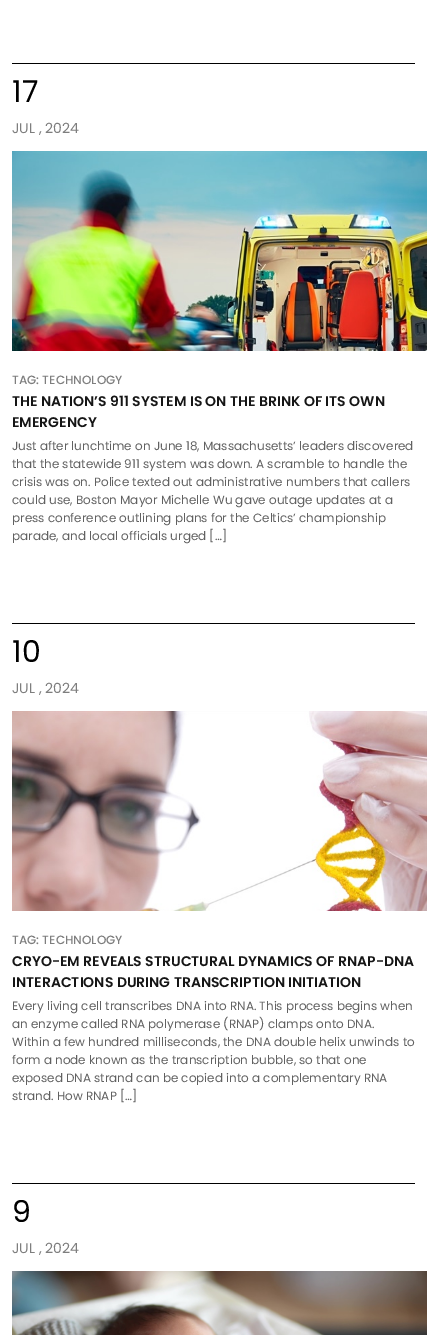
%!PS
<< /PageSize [427 1335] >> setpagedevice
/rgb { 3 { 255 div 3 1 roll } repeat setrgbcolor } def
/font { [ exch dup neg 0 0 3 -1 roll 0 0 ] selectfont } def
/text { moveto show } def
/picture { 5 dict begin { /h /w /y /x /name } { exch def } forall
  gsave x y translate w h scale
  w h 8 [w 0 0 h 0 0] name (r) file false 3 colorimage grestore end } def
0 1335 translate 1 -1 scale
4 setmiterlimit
255 255 255 rgb
0 0 427 1335 rectfill
0 0 0 rgb
12 63 403 1 rectfill
(img_01.rgb) 12 151 415 200 picture
12 623 403 1 rectfill
(img_02.rgb) 12 711 415 200 picture
12 1183 403 1 rectfill
(img_03.rgb) 12 1271 415 64 picture
/Poppins-Regular 30 font
(17) 12 102 text
/Poppins-Regular 14 font
126 126 126 rgb
(JUL , 2024) 12 133 text
/Poppins-Medium 12 font
(TAG: TECHNOLOGY) 12 384 text
/Poppins-SemiBold 14 font
21 21 21 rgb
(THE NATION’S 911 SYSTEM IS ON THE BRINK OF ITS OWN) 12 406 text
(EMERGENCY) 12 427 text
/Poppins-Regular 12 font
97 97 97 rgb
(Just after lunchtime on June 18, Massachusetts’ leaders discovered) 12 450 text
(that the statewide 911 system was down. A scramble to handle the) 12 468 text
(crisis was on. Police texted out administrative numbers that callers) 12 486 text
(could use, Boston Mayor Michelle Wu gave outage updates at a) 12 504 text
(press conference outlining plans for the Celtics’ championship) 12 522 text
(parade, and local officials urged […]) 12 540 text
/Poppins-Regular 30 font
0 0 0 rgb
(10) 12 662 text
/Poppins-Regular 14 font
126 126 126 rgb
(JUL , 2024) 12 693 text
/Poppins-Medium 12 font
(TAG: TECHNOLOGY) 12 944 text
/Poppins-SemiBold 14 font
21 21 21 rgb
(CRYO-EM REVEALS STRUCTURAL DYNAMICS OF RNAP-DNA) 12 966 text
(INTERACTIONS DURING TRANSCRIPTION INITIATION) 12 987 text
/Poppins-Regular 12 font
97 97 97 rgb
(Every living cell transcribes DNA into RNA. This process begins when) 12 1010 text
(an enzyme called RNA polymerase \(RNAP\) clamps onto DNA.) 12 1028 text
(Within a few hundred milliseconds, the DNA double helix unwinds to) 12 1046 text
(form a node known as the transcription bubble, so that one) 12 1064 text
(exposed DNA strand can be copied into a complementary RNA) 12 1082 text
(strand. How RNAP […]) 12 1100 text
/Poppins-Regular 30 font
0 0 0 rgb
(9) 12 1222 text
/Poppins-Regular 14 font
126 126 126 rgb
(JUL , 2024) 12 1253 text
showpage
